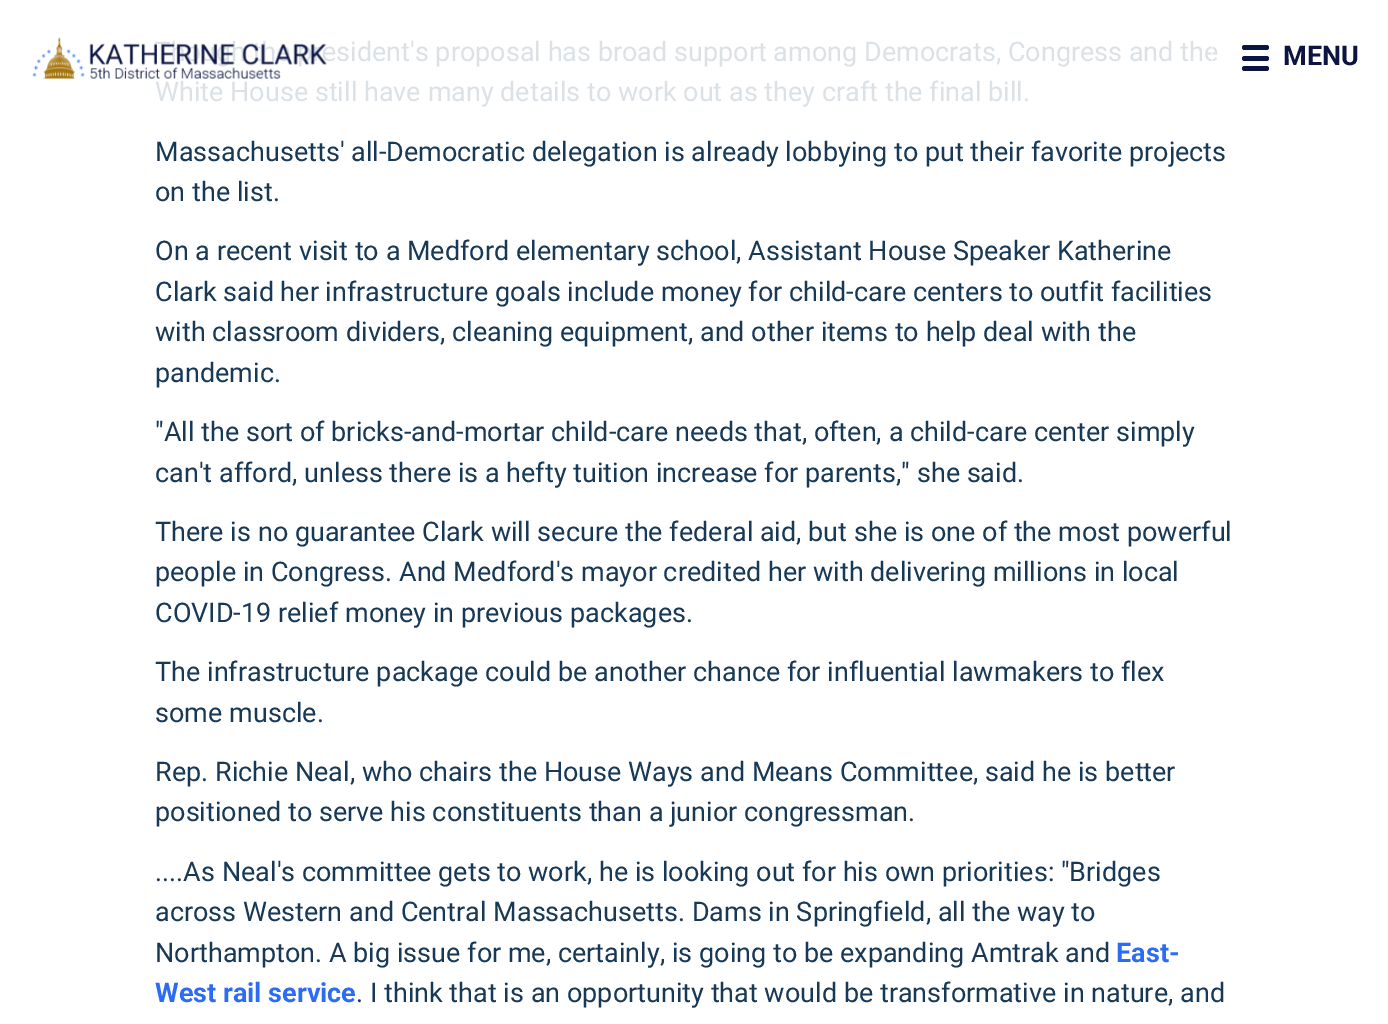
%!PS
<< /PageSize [1388 1024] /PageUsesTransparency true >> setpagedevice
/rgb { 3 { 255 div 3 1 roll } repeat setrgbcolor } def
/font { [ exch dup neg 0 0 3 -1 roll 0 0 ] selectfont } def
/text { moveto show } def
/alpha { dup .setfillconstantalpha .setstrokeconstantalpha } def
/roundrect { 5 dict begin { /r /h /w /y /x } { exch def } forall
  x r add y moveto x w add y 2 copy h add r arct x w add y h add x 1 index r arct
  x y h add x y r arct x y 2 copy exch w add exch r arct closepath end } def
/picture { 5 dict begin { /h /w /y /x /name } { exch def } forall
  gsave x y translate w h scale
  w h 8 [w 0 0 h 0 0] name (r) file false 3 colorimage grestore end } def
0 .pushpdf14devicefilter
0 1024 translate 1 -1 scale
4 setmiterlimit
255 255 255 rgb
0 0 1388 1024 rectfill
12 20 66 rgb
1242 45 27 5 2.5 roundrect fill
1242 56 27 5 2.5 roundrect fill
1242 66 27 5 2.5 roundrect fill
/Roboto-Regular 27 font
220 225 230 rgb
(Though the president's proposal has broad support among Democrats, Congress and the) 155 61 text
(White House still have many details to work out as they craft the final bill.) 155 101 text
24 57 86 rgb
(Massachusetts' all-Democratic delegation is already lobbying to put their favorite projects) 155 161 text
(on the list.) 155 201 text
(On a recent visit to a Medford elementary school, Assistant House Speaker Katherine) 155 260 text
(Clark said her infrastructure goals include money for child-care centers to outfit facilities) 155 301 text
(with classroom dividers, cleaning equipment, and other items to help deal with the) 155 341 text
(pandemic.) 155 382 text
("All the sort of bricks-and-mortar child-care needs that, often, a child-care center simply) 155 441 text
(can't afford, unless there is a hefty tuition increase for parents," she said.) 155 482 text
(There is no guarantee Clark will secure the federal aid, but she is one of the most powerful) 155 541 text
(people in Congress. And Medford's mayor credited her with delivering millions in local) 155 581 text
(COVID-19 relief money in previous packages.) 155 622 text
(The infrastructure package could be another chance for influential lawmakers to flex) 155 681 text
(some muscle.) 155 722 text
(Rep. Richie Neal, who chairs the House Ways and Means Committee, said he is better) 155 781 text
(positioned to serve his constituents than a junior congressman.) 155 821 text
(....As Neal's committee gets to work, he is looking out for his own priorities: "Bridges) 155 881 text
(across Western and Central Massachusetts. Dams in Springfield, all the way to) 155 921 text
(Northampton. A big issue for me, certainly, is going to be expanding Amtrak and) 155 962 text
/Roboto-Bold 27 font
44 108 244 rgb
(East-) 1116 962 text
(West rail service) 155 1002 text
/Roboto-Regular 27 font
24 57 86 rgb
(. I think that is an opportunity that would be transformative in nature, and) 356 1002 text
(img_01.rgb) 32 37 295 43 picture
0.5 alpha
255 255 255 rgb
1211 46 2 16 rectfill
/Roboto-Bold 27 font
1 alpha
12 20 66 rgb
(MENU) 1283 65 text
.poppdf14devicefilter showpage
